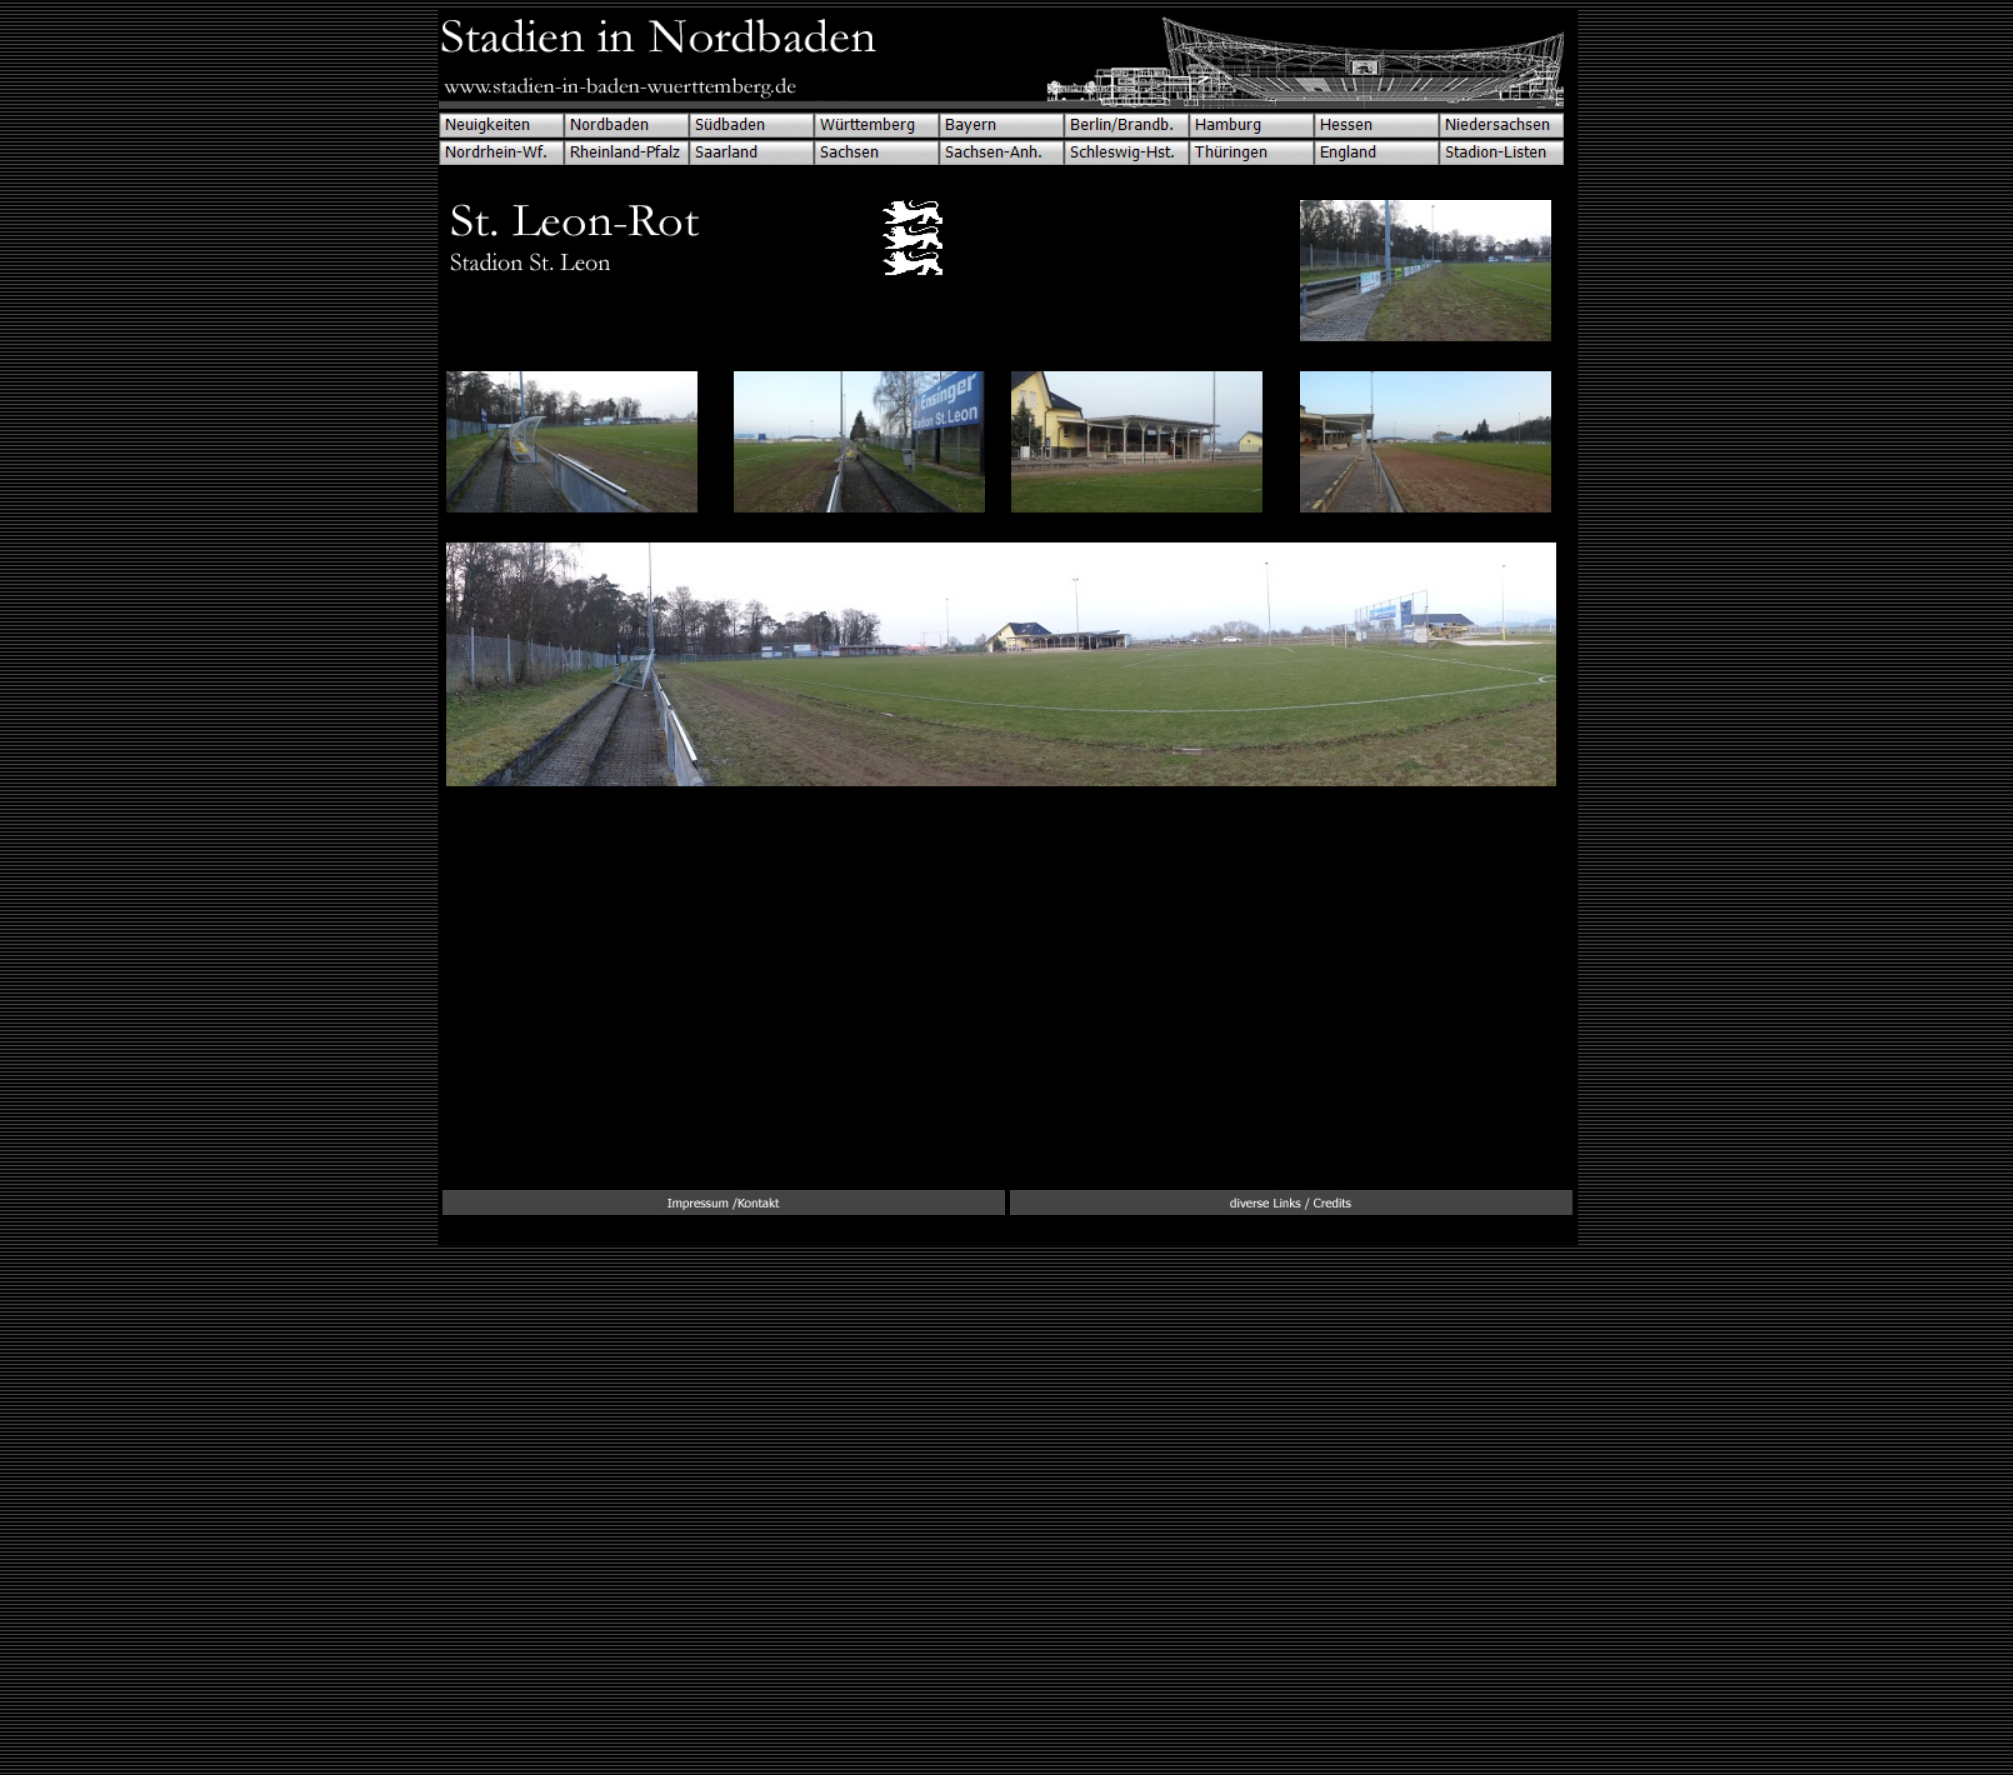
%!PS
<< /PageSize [2013 1775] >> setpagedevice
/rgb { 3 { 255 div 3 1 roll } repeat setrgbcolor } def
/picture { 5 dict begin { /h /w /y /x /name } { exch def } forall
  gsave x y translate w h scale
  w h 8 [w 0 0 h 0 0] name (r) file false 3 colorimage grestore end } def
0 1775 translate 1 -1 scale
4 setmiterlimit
0 0 0 rgb
0 0 2013 1775 rectfill
(img_01.rgb) 0 0 2013 1774 picture
438 10 1140 1235 rectfill
(img_02.rgb) 438 16 1126 93 picture
(img_03.rgb) 438 112 126 26 picture
(img_04.rgb) 563 112 126 26 picture
(img_05.rgb) 688 112 126 26 picture
(img_06.rgb) 813 112 126 26 picture
(img_07.rgb) 938 112 126 26 picture
(img_08.rgb) 1063 112 126 26 picture
(img_09.rgb) 1188 112 126 26 picture
(img_10.rgb) 1313 112 126 26 picture
(img_11.rgb) 1438 112 126 26 picture
(img_12.rgb) 438 140 126 25 picture
(img_13.rgb) 563 140 126 25 picture
(img_14.rgb) 688 140 126 25 picture
(img_15.rgb) 813 140 126 25 picture
(img_16.rgb) 938 140 126 25 picture
(img_17.rgb) 1063 140 126 25 picture
(img_18.rgb) 1188 140 126 25 picture
(img_19.rgb) 1313 140 126 25 picture
(img_20.rgb) 1438 140 126 25 picture
(img_21.rgb) 450 200 493 76 picture
(img_22.rgb) 1300 200 252 142 picture
(img_23.rgb) 446 371 252 142 picture
(img_24.rgb) 733 371 252 142 picture
(img_25.rgb) 1011 371 252 142 picture
(img_26.rgb) 1300 371 252 142 picture
(img_27.rgb) 446 542 1111 245 picture
(img_28.rgb) 442 1190 563 25 picture
(img_29.rgb) 1010 1190 563 25 picture
showpage
